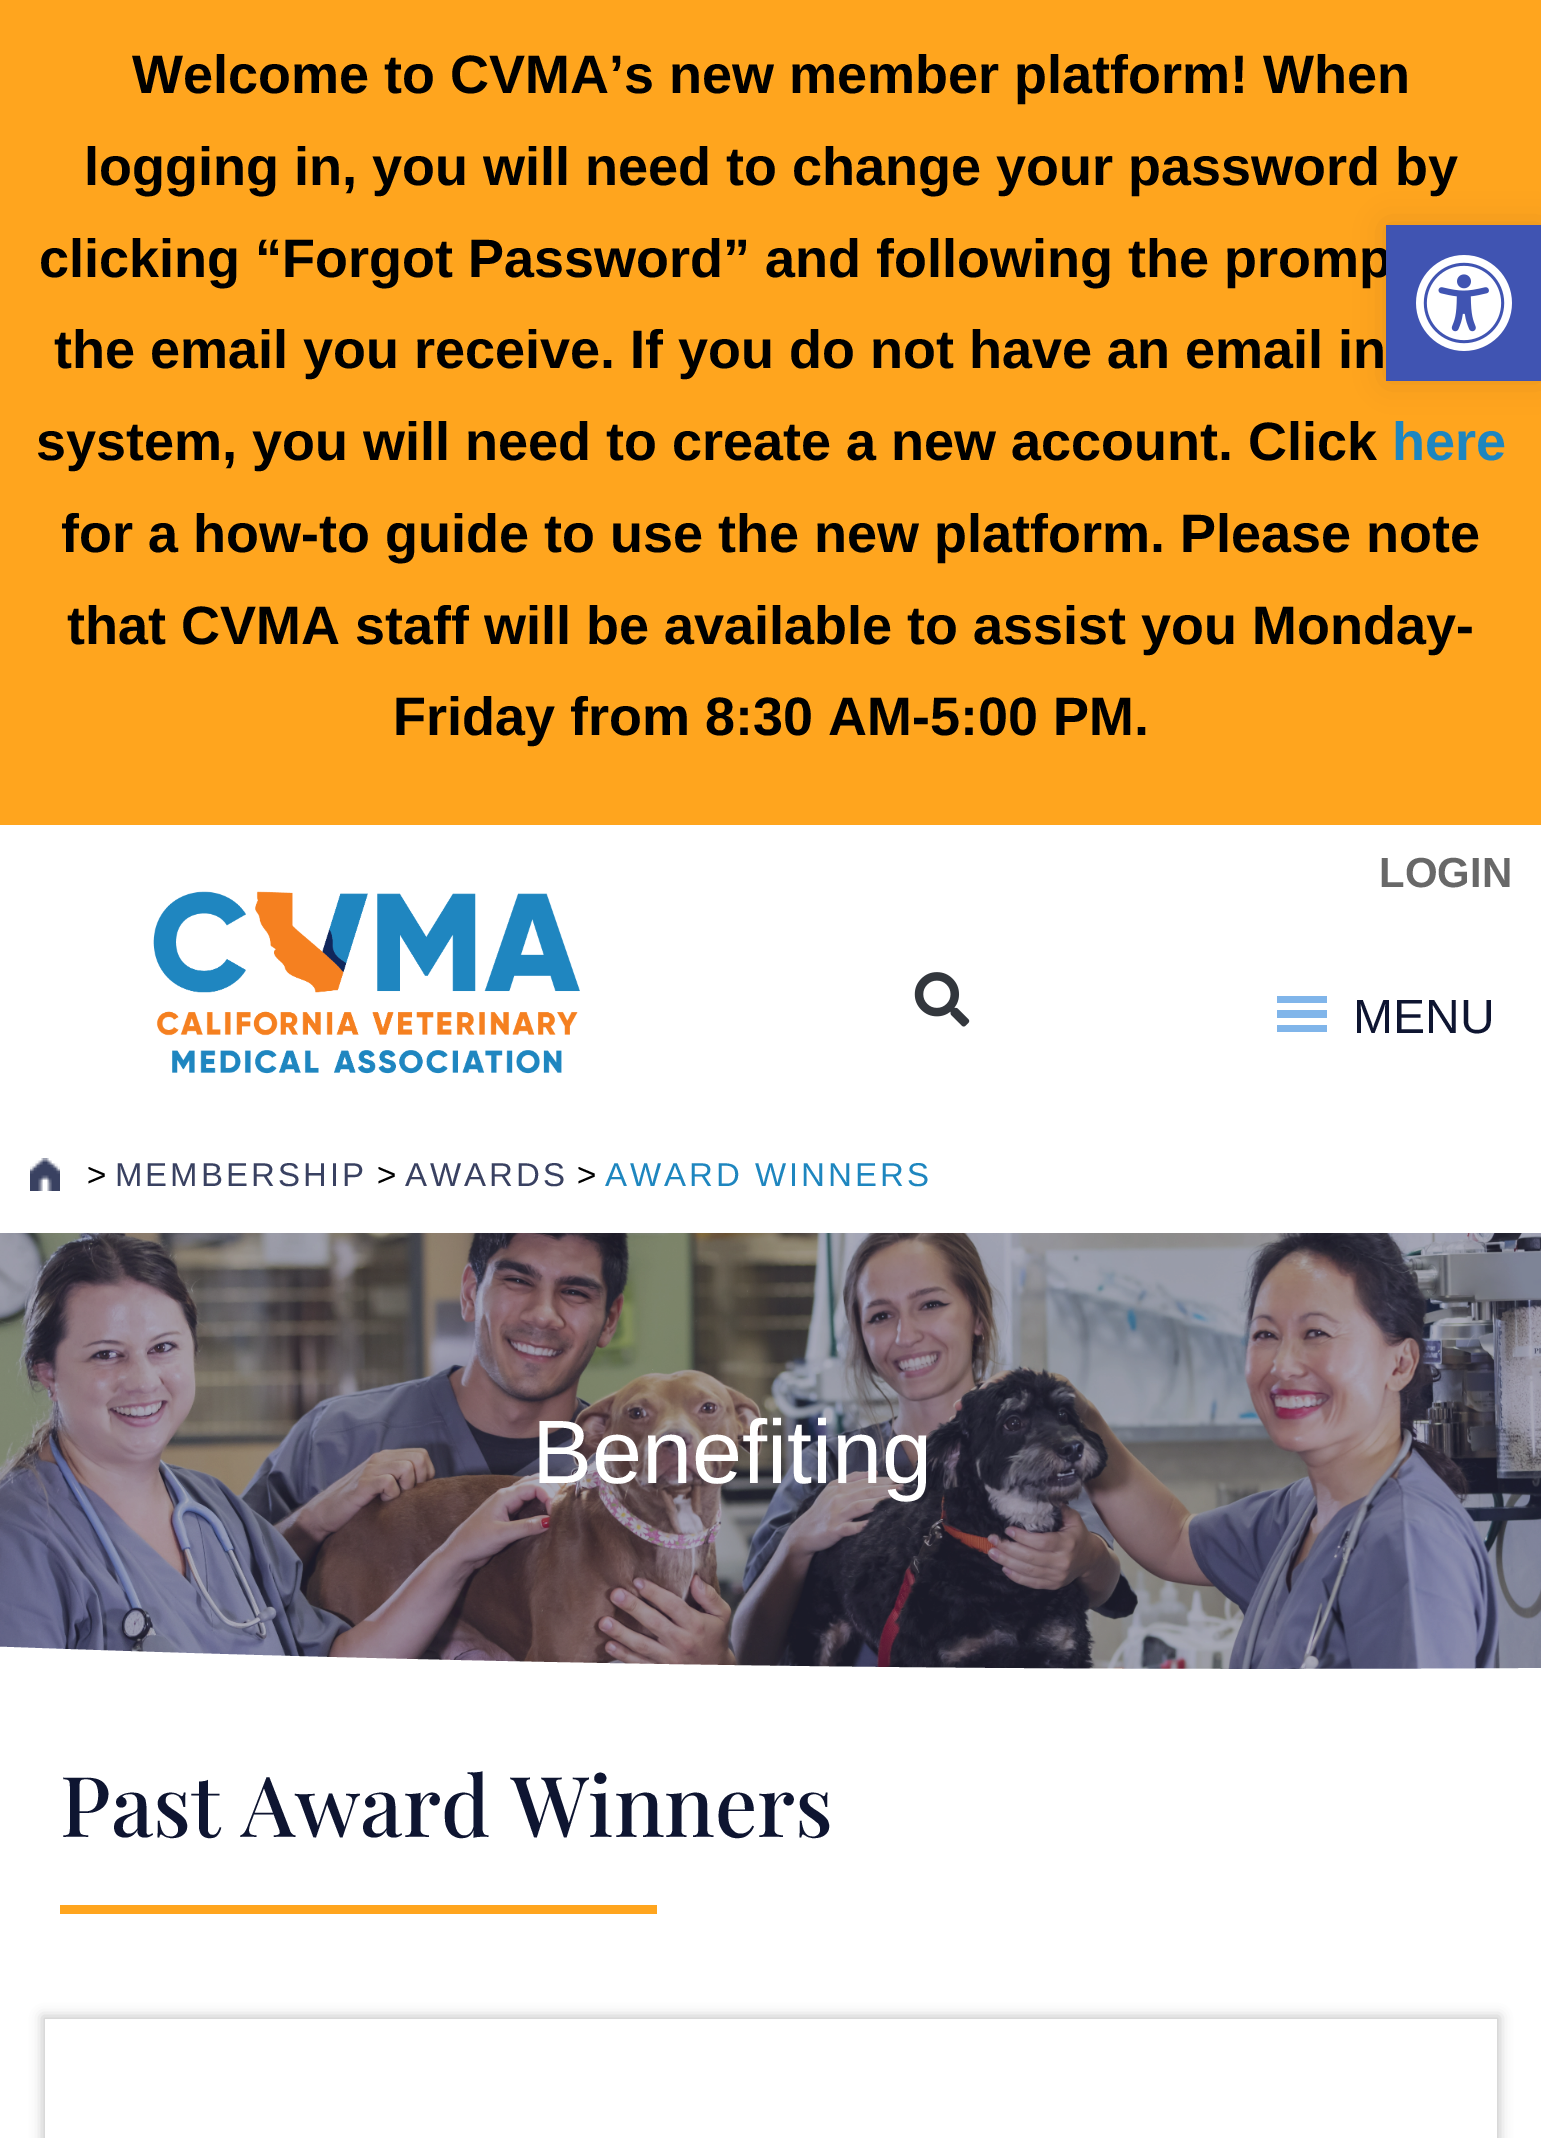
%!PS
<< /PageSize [1541 2138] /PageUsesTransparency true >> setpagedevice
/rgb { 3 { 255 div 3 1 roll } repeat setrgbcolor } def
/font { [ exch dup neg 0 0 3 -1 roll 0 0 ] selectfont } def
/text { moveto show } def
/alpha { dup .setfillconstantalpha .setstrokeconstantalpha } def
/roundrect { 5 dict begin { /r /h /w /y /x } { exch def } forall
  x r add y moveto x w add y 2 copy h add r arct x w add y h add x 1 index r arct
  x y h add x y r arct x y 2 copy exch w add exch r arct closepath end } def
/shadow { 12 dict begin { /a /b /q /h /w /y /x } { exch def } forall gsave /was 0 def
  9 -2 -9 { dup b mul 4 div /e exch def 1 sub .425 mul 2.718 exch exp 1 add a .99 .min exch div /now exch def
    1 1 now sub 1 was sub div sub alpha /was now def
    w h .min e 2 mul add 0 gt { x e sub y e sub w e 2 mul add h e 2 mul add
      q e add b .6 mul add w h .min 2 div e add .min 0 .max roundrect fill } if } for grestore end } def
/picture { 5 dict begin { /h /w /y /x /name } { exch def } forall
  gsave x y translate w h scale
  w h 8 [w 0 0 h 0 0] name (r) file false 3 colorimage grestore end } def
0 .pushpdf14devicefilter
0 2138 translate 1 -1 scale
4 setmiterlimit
255 255 255 rgb
0 0 1541 2138 rectfill
255 165 30 rgb
0 0 1541 825 rectfill
(img_01.rgb) 153 891 427 183 picture
(img_02.rgb) 914 972 56 55 picture
128 181 234 rgb
1277 1032 moveto 50 0 rlineto 0 -7 rlineto -50 0 rlineto closepath 1277 996 moveto 0 7 rlineto 50 0 rlineto 0 -7 rlineto closepath 1277 1018 moveto 50 0 rlineto 0 -8 rlineto -50 0 rlineto closepath fill
(img_03.rgb) 30 1158 30 33 picture
0 0 0 rgb
1386 225 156 156 0 15 0.1 shadow
(img_05.rgb) 0 1233 1541 436 picture
255 255 255 rgb
1304 1669 moveto -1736 2 -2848 -117 -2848 -145 rcurveto 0 150 rlineto 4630 0 rlineto 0 -150 rlineto 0 29 -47 144 -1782 145 rcurveto closepath fill
255 165 30 rgb
60 1905 597 9 rectfill
gsave
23 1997 moveto 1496 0 rlineto 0 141 rlineto -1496 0 rlineto closepath 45 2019 moveto 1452 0 rlineto 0 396 rlineto -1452 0 rlineto closepath eoclip newpath
194 194 194 rgb
42 2016 1458 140 0 6 0.9 shadow
grestore
/LiberationSans-Bold 54 font
0 0 0 rgb
(Welcome to CVMA’s new member platform! When) 132 93 text
(logging in, you will need to change your password by) 84 185 text
(clicking “Forgot Password” and following the promp) 39 277 text
(the email you receive. If you do not have an email in) 54 368 text
(system, you will need to create a new account. Click) 36 460 text
30 134 191 rgb
(here) 1392 460 text
0 0 0 rgb
(for a how-to guide to use the new platform. Please note) 61 552 text
(that CVMA staff will be available to assist you Monday-) 67 644 text
(Friday from 8:30 AM-5:00 PM.) 393 735 text
/LiberationSans-Bold 42 font
104 104 104 rgb
(LOGIN) 1379 887 text
/LiberationSans-Regular 48 font
14 21 49 rgb
(MENU) 1353 1033 text
/LiberationSans-Regular 33 font
0 0 0 rgb
(>) 87 1186 text
57 65 97 rgb
115 1186 moveto 3 0 (MEMBERSHIP) ashow
0 0 0 rgb
(>) 377 1186 text
57 65 97 rgb
405 1186 moveto 3 0 (AWARDS) ashow
0 0 0 rgb
(>) 577 1186 text
30 134 191 rgb
605 1186 moveto 3 0 (AWARD WINNERS) ashow
64 84 178 rgb
1386 225 155 156 rectfill
(img_04.rgb) 1416 255 96 96 picture
/LiberationSans-Regular 90 font
255 255 255 rgb
(Benefiting) 532 1483 text
/PlayfairDisplay-Medium 84 font
14 21 49 rgb
(Past Award Winners) 60 1837 text
.poppdf14devicefilter showpage
